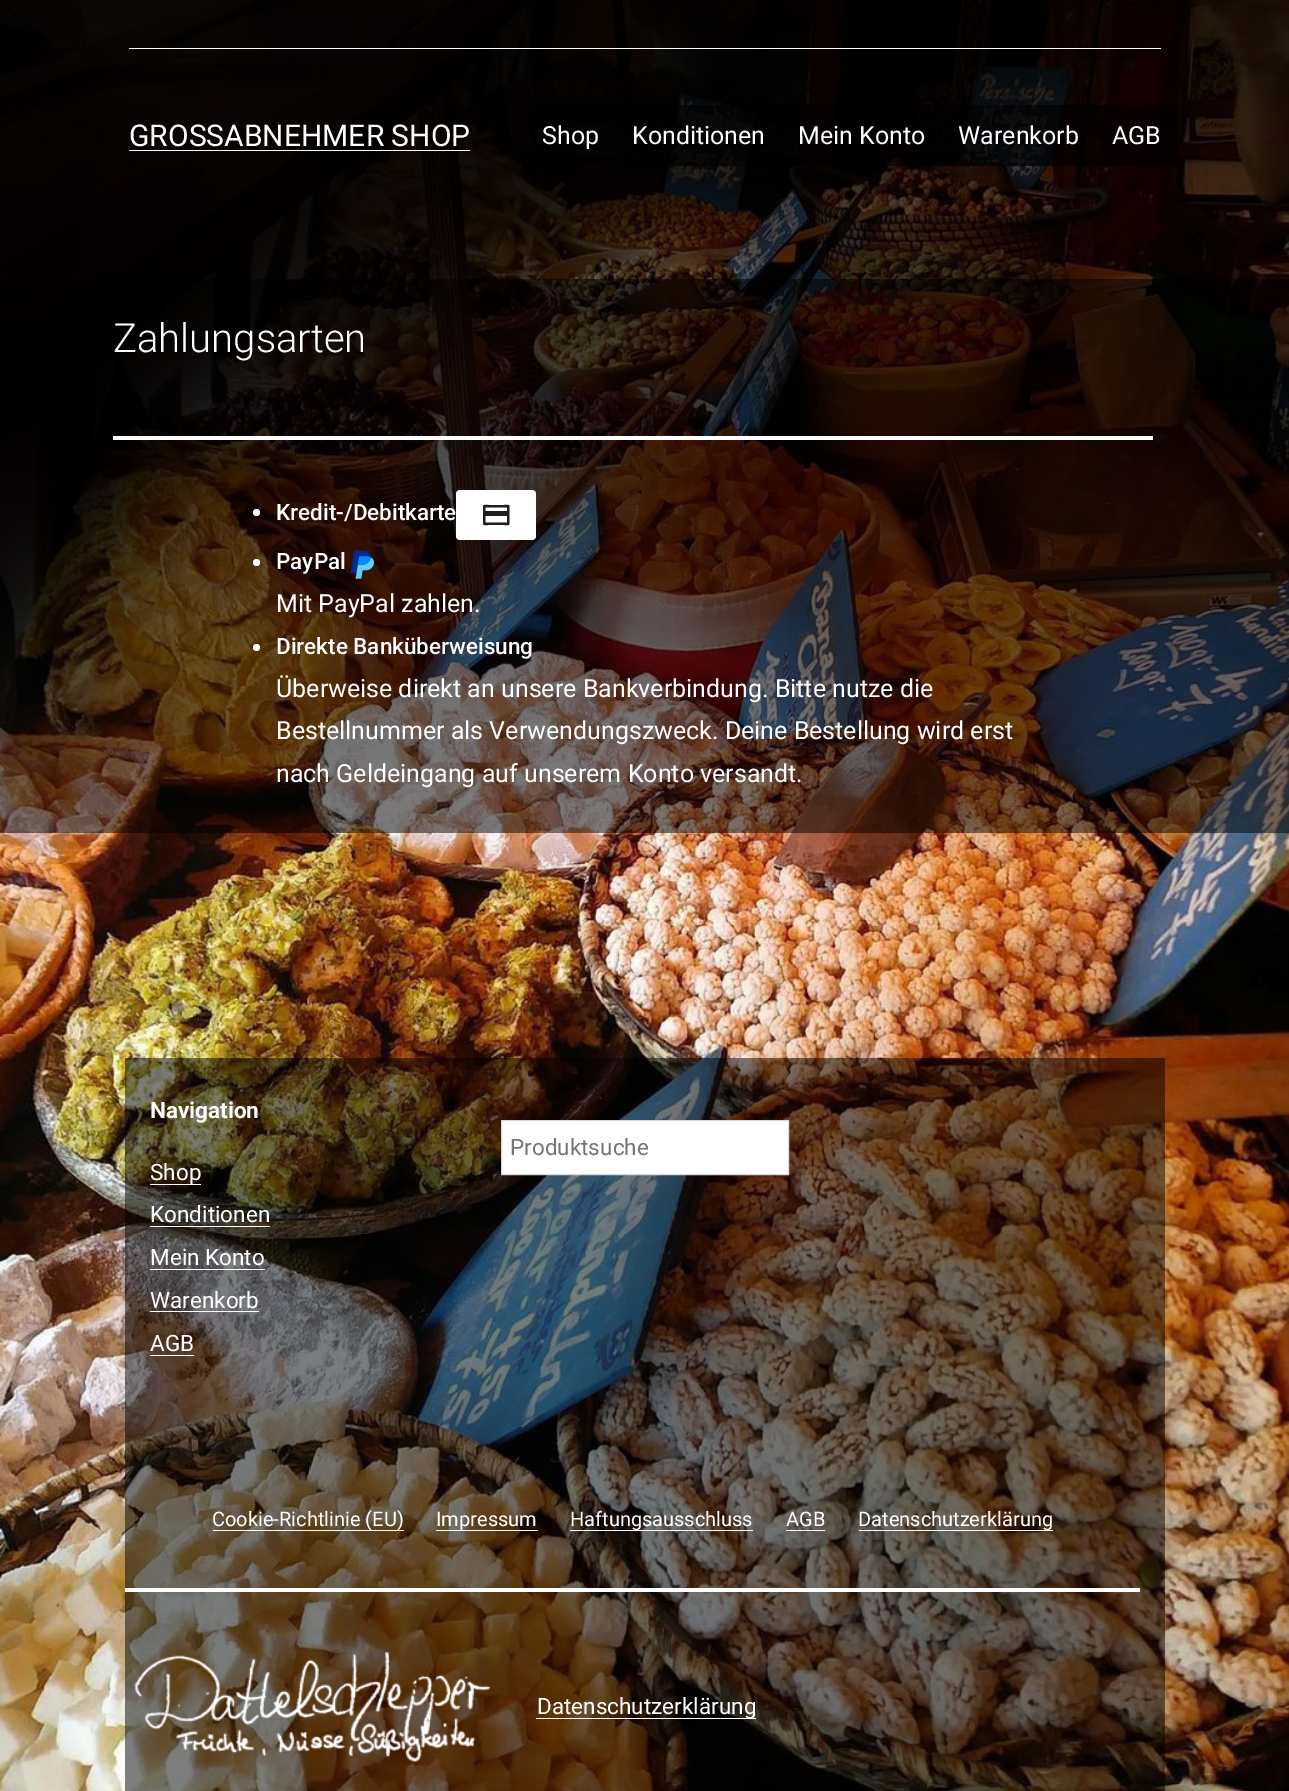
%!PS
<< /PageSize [1289 1791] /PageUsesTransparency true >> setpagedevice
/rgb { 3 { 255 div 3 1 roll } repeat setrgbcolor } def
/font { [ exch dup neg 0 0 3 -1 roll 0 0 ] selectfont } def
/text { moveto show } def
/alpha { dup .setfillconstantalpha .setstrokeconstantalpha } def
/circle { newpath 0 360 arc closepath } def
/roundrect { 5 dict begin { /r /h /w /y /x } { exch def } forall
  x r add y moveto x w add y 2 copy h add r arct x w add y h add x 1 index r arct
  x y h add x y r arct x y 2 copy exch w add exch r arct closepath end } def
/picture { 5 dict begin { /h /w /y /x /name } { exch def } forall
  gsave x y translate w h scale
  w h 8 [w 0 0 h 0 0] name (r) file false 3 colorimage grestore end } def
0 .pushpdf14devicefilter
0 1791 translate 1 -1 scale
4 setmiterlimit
255 255 255 rgb
0 0 1289 1791 rectfill
(img_01.rgb) 0 0 1289 1791 picture
129 48 1032 1 rectfill
129 150 341 1 rectfill
0.64 alpha
0 0 0 rgb
531 105 84 61 rectfill
615 105 166 61 rectfill
781 105 160 61 rectfill
941 105 154 61 rectfill
1095 105 83 61 rectfill
0.5 alpha
0 279 1289 554 rectfill
1 alpha
255 255 255 rgb
113 436 1040 4 rectfill
256.5 512.5 3.5 circle fill
456 490 80 50 4 roundrect fill
30 30 30 rgb
485.5 511 moveto 0 -3.5 rlineto 21.5 0 rlineto 0 3.5 rlineto closepath 485.5 516 moveto 0 6.5 rlineto 21.5 0 rlineto 0 -6.5 rlineto closepath 483 506.5 moveto 0 -2.5 4.5 -1.5 5.5 -1.5 rcurveto 15.5 0 rlineto 1 0 5.5 -1 5.5 1.5 rcurveto 0 14 rlineto 0 5.5 0 4.5 -5.5 4.5 rcurveto -15.5 0 rlineto -5.5 0 -5.5 1 -5.5 -4.5 rcurveto closepath eofill
255 255 255 rgb
256.5 562.5 3.5 circle fill
(img_02.rgb) 350 550 24 29 picture
256.5 647.5 3.5 circle fill
0.5 alpha
0 0 0 rgb
125 1058 1040 357 rectfill
1 alpha
255 255 255 rgb
150 1184 51 1 rectfill
150 1226 120 1 rectfill
150 1269 115 1 rectfill
150 1311 109 1 rectfill
150 1355 44 1 rectfill
501.5 1120.5 moveto 287 0 rlineto 0 54 rlineto -287 0 rlineto closepath gsave fill grestore
216 216 216 rgb
stroke
0.5 alpha
0 0 0 rgb
125 1415 1040 376 rectfill
1 alpha
255 255 255 rgb
213 1530 191 1 rectfill
436 1530 102 1 rectfill
570 1530 183 1 rectfill
786 1530 39 1 rectfill
859 1530 194 1 rectfill
125 1588 1015 4 rectfill
(img_03.rgb) 134 1651 357 112 picture
536 1718 220 1 rectfill
/Roboto-Regular 30 font
(GROSSABNEHMER SHOP) 129 146 text
/Roboto-Regular 25 font
(Shop) 542 144 text
(Konditionen) 632 144 text
(Mein Konto) 798 144 text
(Warenkorb) 958 144 text
(AGB) 1112 144 text
/Roboto-Light 40 font
(Zahlungsarten) 113 352 text
/Roboto-Medium 22.5 font
(Kredit-/Debitkarte) 276 520 text
(PayPal) 276 569 text
/Roboto-Regular 25 font
(Mit PayPal zahlen.) 276 612 text
/Roboto-Medium 22.5 font
(Direkte Banküberweisung) 276 654 text
/Roboto-Regular 25 font
(Überweise direkt an unsere Bankverbindung. Bitte nutze die) 276 697 text
(Bestellnummer als Verwendungszweck. Deine Bestellung wird erst) 276 739 text
(nach Geldeingang auf unserem Konto versandt.) 276 782 text
/Roboto-Bold 22.5 font
(Navigation) 150 1118 text
/Roboto-Regular 22.5 font
(Shop) 150 1180 text
(Konditionen) 150 1222 text
(Mein Konto) 150 1265 text
(Warenkorb) 150 1308 text
(AGB) 150 1351 text
117 117 117 rgb
(Produktsuche) 510 1155 text
/Roboto-Regular 20 font
255 255 255 rgb
(Cookie-Richtlinie \(EU\)) 212 1526 text
(Impressum) 436 1526 text
(Haftungsausschluss) 570 1526 text
(AGB) 786 1526 text
(Datenschutzerklärung) 858 1526 text
/Roboto-Regular 22.5 font
(Datenschutzerklärung) 537 1714 text
.poppdf14devicefilter showpage
